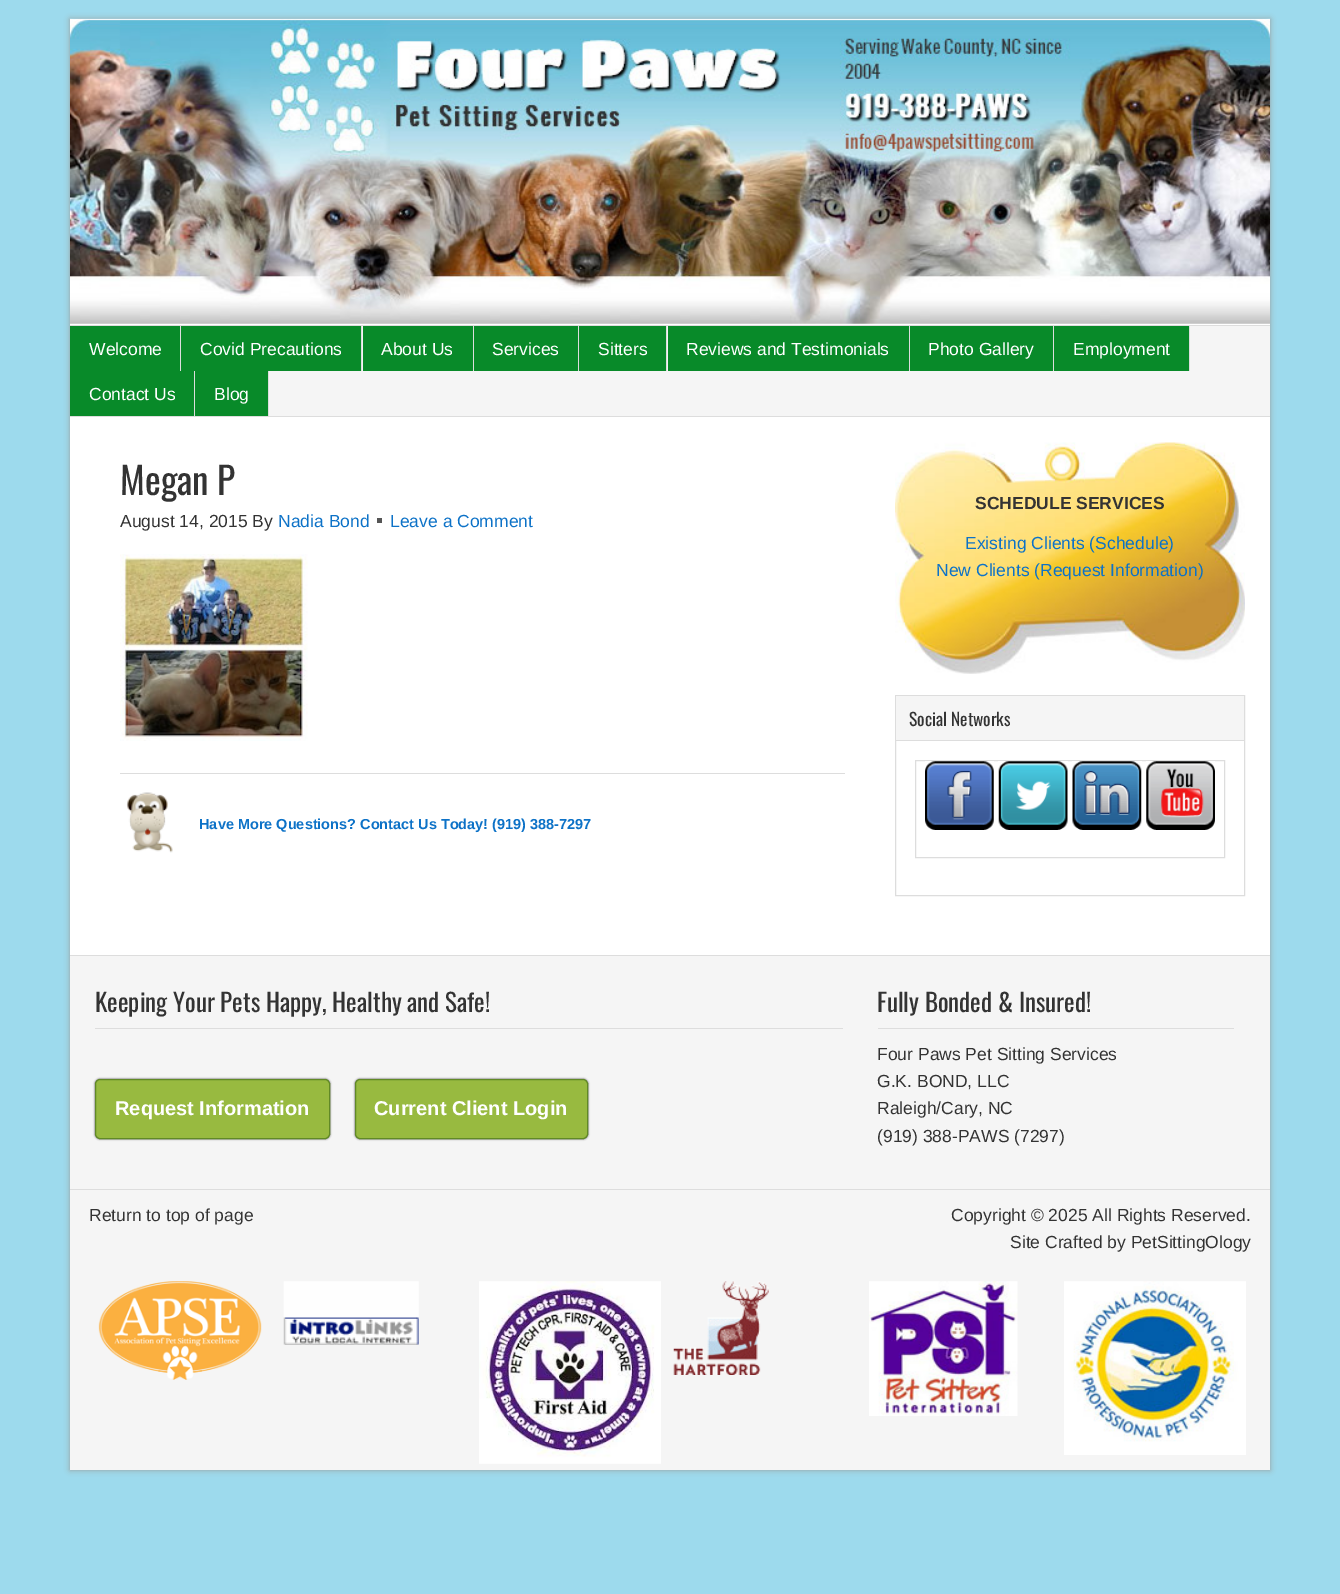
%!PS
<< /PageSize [1340 1594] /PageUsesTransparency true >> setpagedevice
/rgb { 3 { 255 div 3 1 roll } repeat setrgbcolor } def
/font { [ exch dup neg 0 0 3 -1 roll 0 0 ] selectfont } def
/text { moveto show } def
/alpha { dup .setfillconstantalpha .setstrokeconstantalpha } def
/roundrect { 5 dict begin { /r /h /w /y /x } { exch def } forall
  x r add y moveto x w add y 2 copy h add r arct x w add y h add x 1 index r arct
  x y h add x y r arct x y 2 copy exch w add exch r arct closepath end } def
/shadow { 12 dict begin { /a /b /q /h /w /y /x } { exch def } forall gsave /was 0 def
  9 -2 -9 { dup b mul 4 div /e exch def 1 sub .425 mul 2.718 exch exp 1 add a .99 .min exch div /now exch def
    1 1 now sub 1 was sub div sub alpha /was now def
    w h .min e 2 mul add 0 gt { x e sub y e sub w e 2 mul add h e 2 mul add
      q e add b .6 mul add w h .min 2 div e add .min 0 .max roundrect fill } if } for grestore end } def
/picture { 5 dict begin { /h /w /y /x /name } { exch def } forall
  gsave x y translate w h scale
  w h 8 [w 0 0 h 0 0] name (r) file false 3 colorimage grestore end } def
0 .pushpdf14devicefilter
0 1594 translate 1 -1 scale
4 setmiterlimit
157 218 237 rgb
0 0 1340 1594 rectfill
153 153 153 rgb
70 19 1200 1451 0 3 1 shadow
255 255 255 rgb
70 323 1200 632 rectfill
(img_01.rgb) 70 18 1200 306 picture
245 245 245 rgb
269 326 1001 90 rectfill
221 221 221 rgb
70 325 1200 1 rectfill
70 416 1200 1 rectfill
8 138 41 rgb
70 326 110 45 rectfill
221 221 221 rgb
180 326 1 45 rectfill
8 138 41 rgb
181 326 180 45 rectfill
221 221 221 rgb
361 326 1 45 rectfill
8 138 41 rgb
363 326 110 45 rectfill
221 221 221 rgb
473 326 1 45 rectfill
8 138 41 rgb
474 326 104 45 rectfill
221 221 221 rgb
578 326 1 45 rectfill
8 138 41 rgb
579 326 87 45 rectfill
221 221 221 rgb
666 326 1 45 rectfill
8 138 41 rgb
668 326 241 45 rectfill
221 221 221 rgb
909 326 1 45 rectfill
8 138 41 rgb
910 326 143 45 rectfill
221 221 221 rgb
1053 326 1 45 rectfill
8 138 41 rgb
1054 326 135 45 rectfill
221 221 221 rgb
1189 326 1 45 rectfill
8 138 41 rgb
70 371 124 45 rectfill
221 221 221 rgb
194 371 1 45 rectfill
8 138 41 rgb
195 371 73 45 rectfill
221 221 221 rgb
268 371 1 45 rectfill
85 85 85 rgb
377 518 5 5 rectfill
(img_02.rgb) 120 554 188 187 picture
221 221 221 rgb
120 773 725 1 rectfill
(img_03.rgb) 126 792 47 61 picture
(img_04.rgb) 895 442 350 232 picture
895.5 695.5 349 200 rectstroke
245 245 245 rgb
896 696 348 44 rectfill
221 221 221 rgb
896 740 348 1 rectfill
915.5 760.5 309 97 rectstroke
(img_05.rgb) 925 761 69 69 picture
(img_06.rgb) 998 761 70 69 picture
(img_07.rgb) 1072 761 70 69 picture
(img_08.rgb) 1146 761 69 69 picture
245 245 245 rgb
70 956 1200 233 rectfill
221 221 221 rgb
70 955 1200 1 rectfill
95 1028 748 1 rectfill
51 51 51 rgb
95 1079 235 60 5 1 1 shadow
152 186 64 rgb
95.5 1079.5 234 59 4.5 roundrect gsave fill grestore
97 137 38 rgb
stroke
51 51 51 rgb
355 1079 233 60 5 1 1 shadow
152 186 64 rgb
355.5 1079.5 232 59 4.5 roundrect gsave fill grestore
97 137 38 rgb
stroke
221 221 221 rgb
878 1028 356 1 rectfill
245 245 245 rgb
70 1190 1200 280 rectfill
221 221 221 rgb
70 1189 1200 1 rectfill
(img_09.rgb) 98 1281 164 99 picture
(img_10.rgb) 283 1281 136 64 picture
(img_11.rgb) 479 1281 182 183 picture
(img_12.rgb) 673 1281 96 94 picture
(img_13.rgb) 869 1281 149 135 picture
(img_14.rgb) 1064 1281 182 174 picture
/LiberationSans-Regular 17.5 font
255 255 255 rgb
(Welcome) 89 355 text
(Covid Precautions) 200 355 text
(About Us) 381 355 text
(Services) 492 355 text
(Sitters) 598 355 text
(Reviews and Testimonials) 686 355 text
(Photo Gallery) 928 355 text
(Employment) 1073 355 text
(Contact Us) 89 400 text
(Blog) 214 400 text
/Oswald-Regular 37.5 font
51 51 51 rgb
(Megan P) 120 495 text
/LiberationSans-Regular 17.5 font
(August 14, 2015 By) 120 527 text
13 114 199 rgb
(Nadia Bond) 278 527 text
(Leave a Comment) 390 527 text
/LiberationSans-Bold 14.5 font
(Have More Questions? Contact Us Today! \(919\) 388-7297) 199 829 text
/LiberationSans-Bold 17.5 font
51 51 51 rgb
(SCHEDULE SERVICES) 975 509 text
/LiberationSans-Regular 17.5 font
13 114 199 rgb
(Existing Clients \(Schedule\)) 965 549 text
(New Clients \(Request Information\)) 936 576 text
/Oswald-Regular 17.5 font
51 51 51 rgb
(Social Networks) 909 726 text
/Oswald-Regular 25 font
(Keeping Your Pets Happy, Healthy and Safe!) 95 1012 text
/LiberationSans-Bold 20 font
255 255 255 rgb
(Request Information) 115 1115 text
(Current Client Login) 374 1115 text
/Oswald-Regular 25 font
51 51 51 rgb
(Fully Bonded & Insured!) 877 1012 text
/LiberationSans-Regular 17.5 font
(Four Paws Pet Sitting Services) 877 1060 text
(G.K. BOND, LLC) 877 1087 text
(Raleigh/Cary, NC) 877 1114 text
(\(919\) 388-PAWS \(7297\)) 877 1142 text
(Return to top of page) 89 1221 text
(Copyright © 2025 All Rights Reserved.) 951 1221 text
(Site Crafted by PetSittingOlogy) 1010 1248 text
.poppdf14devicefilter showpage
